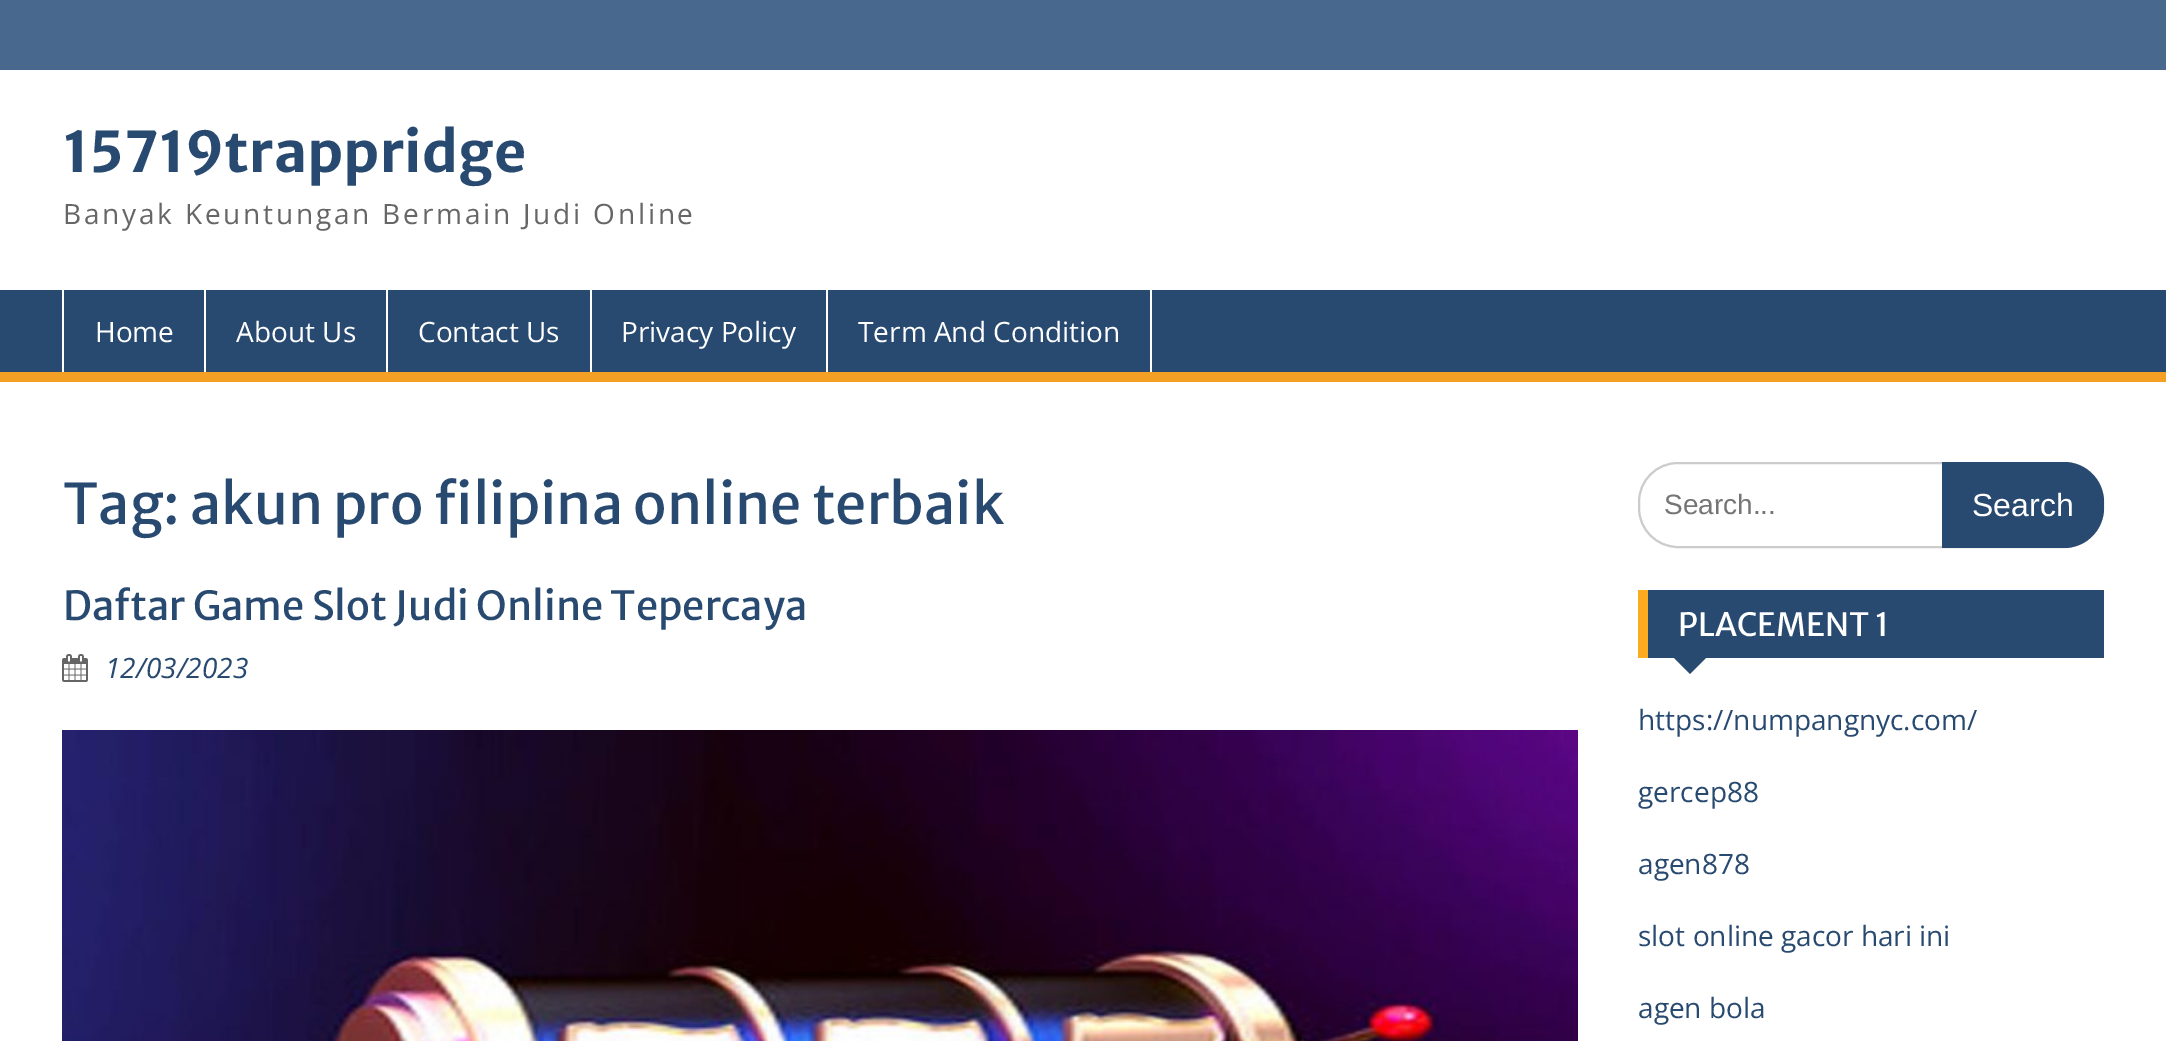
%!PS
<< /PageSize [2166 1041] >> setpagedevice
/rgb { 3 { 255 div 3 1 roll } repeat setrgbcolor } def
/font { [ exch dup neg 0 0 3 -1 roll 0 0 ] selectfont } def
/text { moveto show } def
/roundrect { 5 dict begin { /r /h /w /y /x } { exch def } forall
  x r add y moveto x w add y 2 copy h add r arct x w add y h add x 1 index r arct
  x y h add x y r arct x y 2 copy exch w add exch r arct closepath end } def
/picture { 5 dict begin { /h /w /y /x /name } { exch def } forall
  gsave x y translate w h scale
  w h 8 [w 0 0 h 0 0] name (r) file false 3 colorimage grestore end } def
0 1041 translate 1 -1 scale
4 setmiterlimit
255 255 255 rgb
0 0 2166 1041 rectfill
73 104 142 rgb
0 0 2166 70 rectfill
41 74 112 rgb
0 290 2166 82 rectfill
244 160 36 rgb
0 372 2166 10 rectfill
255 255 255 rgb
204 290 2 82 rectfill
62 290 2 82 rectfill
386 290 2 82 rectfill
590 290 2 82 rectfill
826 290 2 82 rectfill
1150 290 2 82 rectfill
(img_01.rgb) 62 654 26 28 picture
(img_02.rgb) 62 730 1516 311 picture
204 204 204 rgb
2 setlinewidth
1639 463 464 84 39 roundrect stroke
41 74 112 rgb
1942 462 moveto 122 0 rlineto 22 0 40 18 40 40 rcurveto 0 6 rlineto 0 22 -18 40 -40 40 rcurveto -122 0 rlineto closepath fill
1648 590 456 68 rectfill
255 171 31 rgb
1638 590 10 68 rectfill
41 74 112 rgb
1672 656 moveto 36 0 rlineto -18 18 rlineto closepath fill
/MerriweatherSans-Bold 56 font
(15719trappridge) 63 172 text
/OpenSans-Regular 28 font
102 102 102 rgb
63 224 moveto 2.8 0 (Banyak Keuntungan Bermain Judi Online) ashow
255 255 255 rgb
(Home) 95 342 text
(About Us) 236 342 text
(Contact Us) 418 342 text
(Privacy Policy) 621 342 text
(Term And Condition) 858 342 text
/MerriweatherSans-Regular 56 font
41 74 112 rgb
(Tag: akun pro filipina online terbaik) 63 524 text
/MerriweatherSans-Regular 40 font
(Daftar Game Slot Judi Online Tepercaya) 63 620 text
/OpenSans-Italic 28 font
(12/03/2023) 105 678 text
/LiberationSans-Regular 28 font
117 117 117 rgb
(Search...) 1664 514 text
/LiberationSans-Regular 32 font
255 255 255 rgb
(Search) 1972 516 text
/MerriweatherSans-Regular 32 font
(PLACEMENT 1) 1678 636 text
/OpenSans-Regular 28 font
41 74 112 rgb
(https://numpangnyc.com/) 1638 730 text
(gercep88) 1638 802 text
(agen878) 1638 874 text
(slot online gacor hari ini) 1638 946 text
(agen bola) 1638 1018 text
showpage
